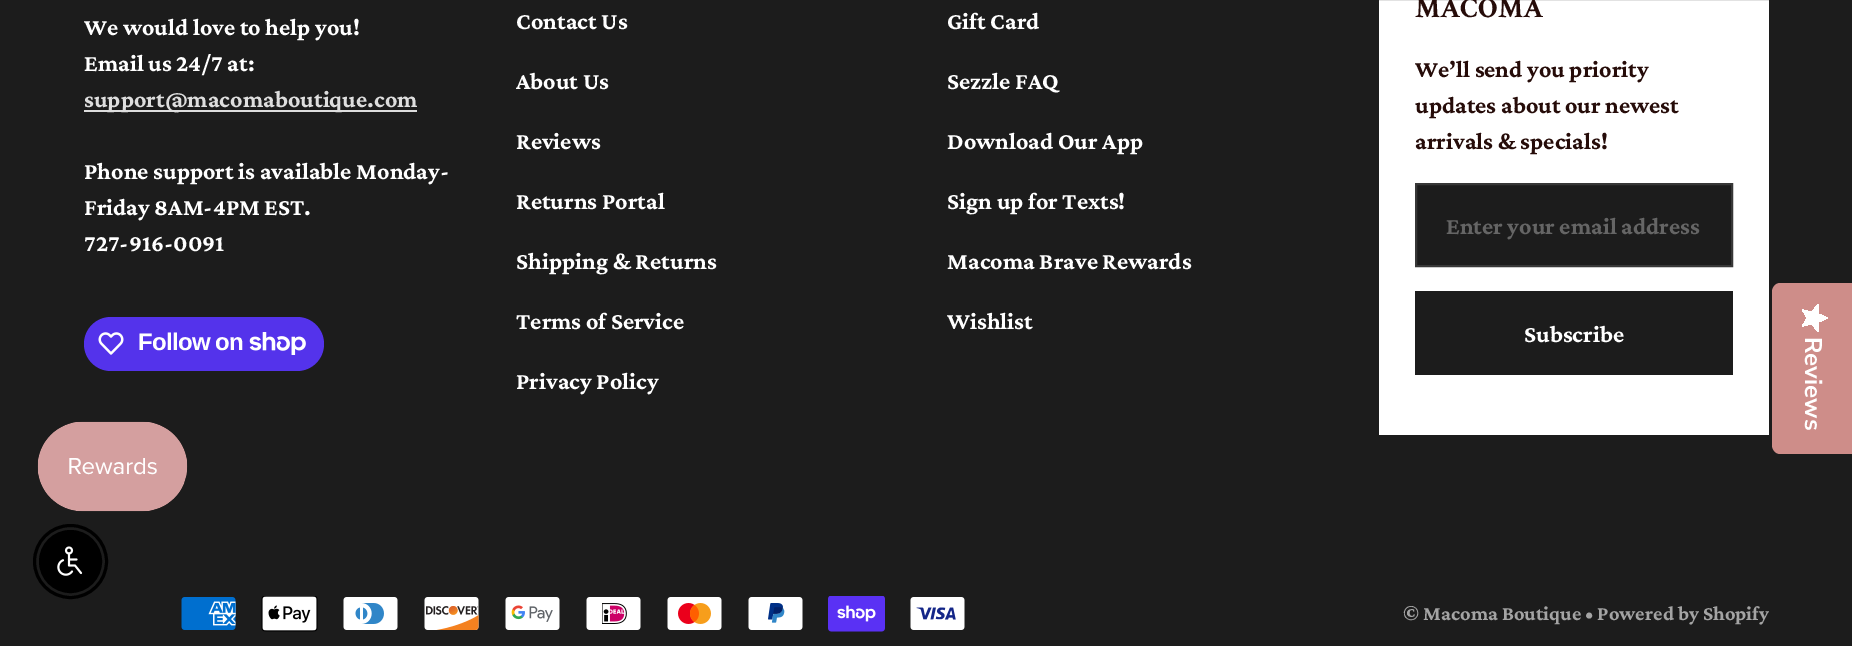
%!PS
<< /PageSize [1852 646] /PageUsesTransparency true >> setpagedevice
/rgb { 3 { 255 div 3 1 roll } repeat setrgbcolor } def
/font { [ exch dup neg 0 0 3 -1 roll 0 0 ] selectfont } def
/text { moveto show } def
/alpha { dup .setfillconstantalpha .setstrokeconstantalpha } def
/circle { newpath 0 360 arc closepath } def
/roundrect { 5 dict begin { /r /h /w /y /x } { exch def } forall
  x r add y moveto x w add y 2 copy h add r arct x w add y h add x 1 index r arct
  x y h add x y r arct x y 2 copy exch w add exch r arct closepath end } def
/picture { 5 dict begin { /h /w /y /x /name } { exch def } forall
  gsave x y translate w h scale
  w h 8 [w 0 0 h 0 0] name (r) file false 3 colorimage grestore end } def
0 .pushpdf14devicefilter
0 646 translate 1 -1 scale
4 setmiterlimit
28 28 28 rgb
0 0 1852 646 rectfill
221 221 221 rgb
84 110 333 2 rectfill
84 51 235 rgb
84 317 240 54 27 roundrect fill
(img_01.rgb) 98 332 26 23 picture
(img_02.rgb) 249 332 57 23 picture
255 255 255 rgb
1379 0 390 435 rectfill
28 28 28 rgb
1416 184 moveto 316 0 rlineto 0 82 rlineto -316 0 rlineto closepath gsave fill grestore
55 55 55 rgb
2 setlinewidth
stroke
28 28 28 rgb
1415 291 318 84 rectfill
(img_03.rgb) 181 597 55 33 picture
(img_04.rgb) 261 596 57 36 picture
(img_05.rgb) 343 597 55 33 picture
(img_06.rgb) 424 597 55 33 picture
(img_07.rgb) 505 597 55 33 picture
(img_08.rgb) 586 597 55 33 picture
(img_09.rgb) 667 597 55 33 picture
(img_10.rgb) 748 597 55 33 picture
(img_11.rgb) 828 596 57 36 picture
(img_12.rgb) 910 597 55 33 picture
0.12 alpha
16 16 16 rgb
1379 0 390 1 rectfill
1 alpha
206 141 137 rgb
1852 283 moveto 0 171 rlineto -72 0 rlineto -4 0 -8 -4 -8 -9 rcurveto 0 -153 rlineto 0 -5 4 -9 8 -9 rcurveto closepath fill
gsave 1807 318 moveto -5 8.5 rlineto 9.5 -2.5 rlineto 6.5 7.5 rlineto 1 -9.5 rlineto 9 -4 rlineto -9 -4 rlineto -1 -9.5 rlineto -6.5 7.5 rlineto -9.5 -2.5 rlineto closepath clip newpath
<< /ShadingType 2 /ColorSpace /DeviceRGB /Coords [1828 304 1828 331] /Extend [true true] /Function << /FunctionType 2 /Domain [0 1] /C0 [1 1 1] /C1 [1 1 1] /N 1 >> >> shfill grestore
(img_13.rgb) 37 421 151 91 picture
0 0 0 rgb
3 setlinewidth
70.5 561.5 36 circle stroke
70.5 561.5 30.5 circle gsave fill grestore
2 setlinewidth
stroke
(img_14.rgb) 57 546 26 30 picture
/CrimsonPro-Bold 24 font
255 255 255 rgb
(We would love to help you!) 84 35 text
(Email us 24/7 at:) 84 71 text
222 222 222 rgb
(support@macomaboutique.com) 84 107 text
255 255 255 rgb
(Phone support is available Monday-) 84 179 text
(Friday 8AM-4PM EST.) 84 215 text
(727-916-0091) 84 251 text
/LiberationSans-Bold 24 font
138 350 moveto -0.75 0 (Follow on) ashow
/CrimsonPro-Bold 24 font
(Contact Us) 516 29 text
(About Us) 516 89 text
(Reviews) 516 149 text
(Returns Portal) 516 209 text
(Shipping & Returns) 516 269 text
(Terms of Service) 516 329 text
(Privacy Policy) 516 389 text
(Gift Card) 947 29 text
(Sezzle FAQ) 947 89 text
(Download Our App) 947 149 text
(Sign up for Texts!) 947 209 text
(Macoma Brave Rewards) 947 269 text
(Wishlist) 947 329 text
/CrimsonText-Bold 28.5 font
38 12 9 rgb
(MACOMA) 1415 17 text
/CrimsonPro-Bold 24 font
(We’ll send you priority) 1415 77 text
(updates about our newest) 1415 113 text
(arrivals & specials!) 1415 149 text
101 101 101 rgb
(Enter your email address) 1446 234 text
255 255 255 rgb
(Subscribe) 1524 342 text
/CrimsonPro-Bold 20.4 font
164 164 164 rgb
(© Macoma Boutique • Powered by Shopify) 1403 620 text
/NunitoSans-ExtraLight 24 font
255 255 255 rgb
gsave 1805 337 translate 90 rotate 0 0 moveto (Reviews) show grestore
.poppdf14devicefilter showpage
